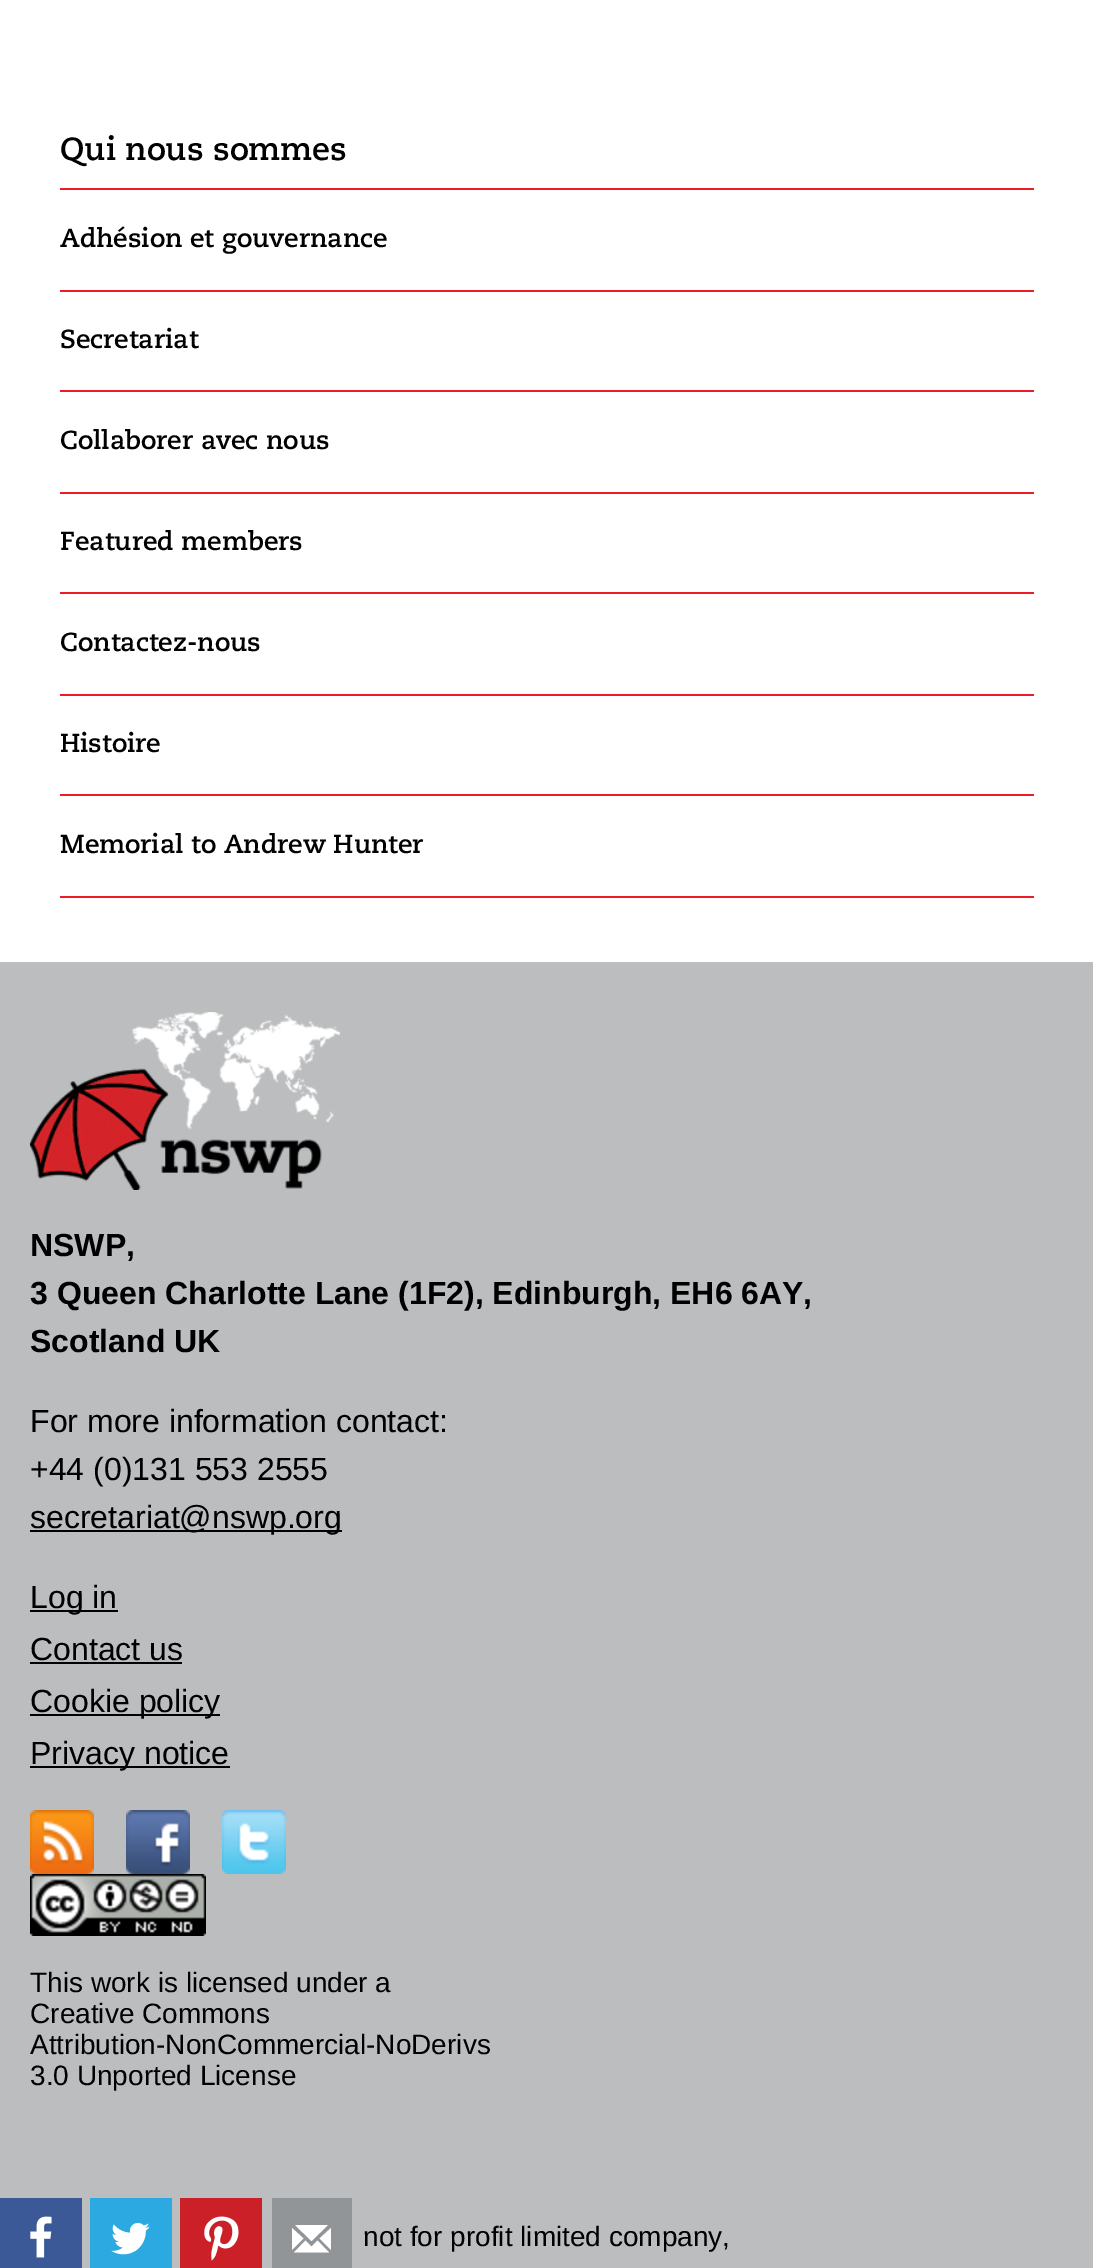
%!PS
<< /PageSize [1093 2268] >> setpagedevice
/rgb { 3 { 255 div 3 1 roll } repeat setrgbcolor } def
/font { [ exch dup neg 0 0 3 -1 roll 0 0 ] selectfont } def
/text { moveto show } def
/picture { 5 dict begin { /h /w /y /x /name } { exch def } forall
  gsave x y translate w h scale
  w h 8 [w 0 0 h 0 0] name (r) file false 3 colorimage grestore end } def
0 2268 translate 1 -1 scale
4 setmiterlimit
255 255 255 rgb
0 0 1093 2268 rectfill
237 28 36 rgb
60 188 974 2 rectfill
60 290 974 2 rectfill
60 390 974 2 rectfill
60 492 974 2 rectfill
60 592 974 2 rectfill
60 694 974 2 rectfill
60 794 974 2 rectfill
60 896 974 2 rectfill
187 189 191 rgb
0 962 1093 1306 rectfill
(img_01.rgb) 30 1012 310 178 picture
0 0 0 rgb
30 1530 312 2 rectfill
30 1610 88 2 rectfill
30 1662 152 2 rectfill
30 1714 190 2 rectfill
30 1766 200 2 rectfill
(img_02.rgb) 30 1810 64 64 picture
(img_03.rgb) 126 1810 64 64 picture
(img_04.rgb) 222 1810 64 64 picture
(img_05.rgb) 30 1874 176 62 picture
59 89 151 rgb
0 2198 82 70 rectfill
(img_06.rgb) 30 2216 22 42 picture
43 169 224 rgb
90 2198 82 70 rectfill
(img_07.rgb) 111 2222 39 33 picture
203 32 39 rgb
180 2198 82 70 rectfill
(img_08.rgb) 204 2216 35 45 picture
145 149 152 rgb
272 2198 80 70 rectfill
255 255 255 rgb
317.5 2240.5 moveto 11.5 12 rlineto -35 0 rlineto 11.5 -12 rlineto 6 6 rlineto closepath 295 2225 moveto 33 0 rlineto -16.5 16 rlineto closepath 319.5 2238.5 moveto 11.5 -10.5 rlineto 0 22 rlineto closepath 292 2250 moveto 0 -22 rlineto 11.5 10.5 rlineto closepath fill
/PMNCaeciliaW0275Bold-Bold 32 font
0 0 0 rgb
(Qui nous sommes) 60 160 text
/PMNCaeciliaW0275Bold-Bold 26 font
(Adhésion et gouvernance) 60 247 text
(Secretariat) 60 348 text
(Collaborer avec nous) 60 449 text
(Featured members) 60 550 text
(Contactez-nous) 60 651 text
(Histoire) 60 752 text
(Memorial to Andrew Hunter) 60 853 text
/LiberationSans-Bold 32 font
(NSWP,) 30 1256 text
(3 Queen Charlotte Lane \(1F2\), Edinburgh, EH6 6AY,) 30 1304 text
(Scotland UK) 30 1352 text
/LiberationSans-Regular 32 font
(For more information contact:) 30 1432 text
(+44 \(0\)131 553 2555) 30 1480 text
(secretariat@nswp.org) 30 1528 text
(Log in) 30 1608 text
(Contact us) 30 1660 text
(Cookie policy) 30 1712 text
(Privacy notice) 30 1764 text
/LiberationSans-Regular 28 font
(This work is licensed under a) 30 1992 text
(Creative Commons) 30 2023 text
(Attribution-NonCommercial-NoDerivs) 30 2054 text
(3.0 Unported License) 30 2085 text
(not for profit limited company,) 363 2246 text
showpage
